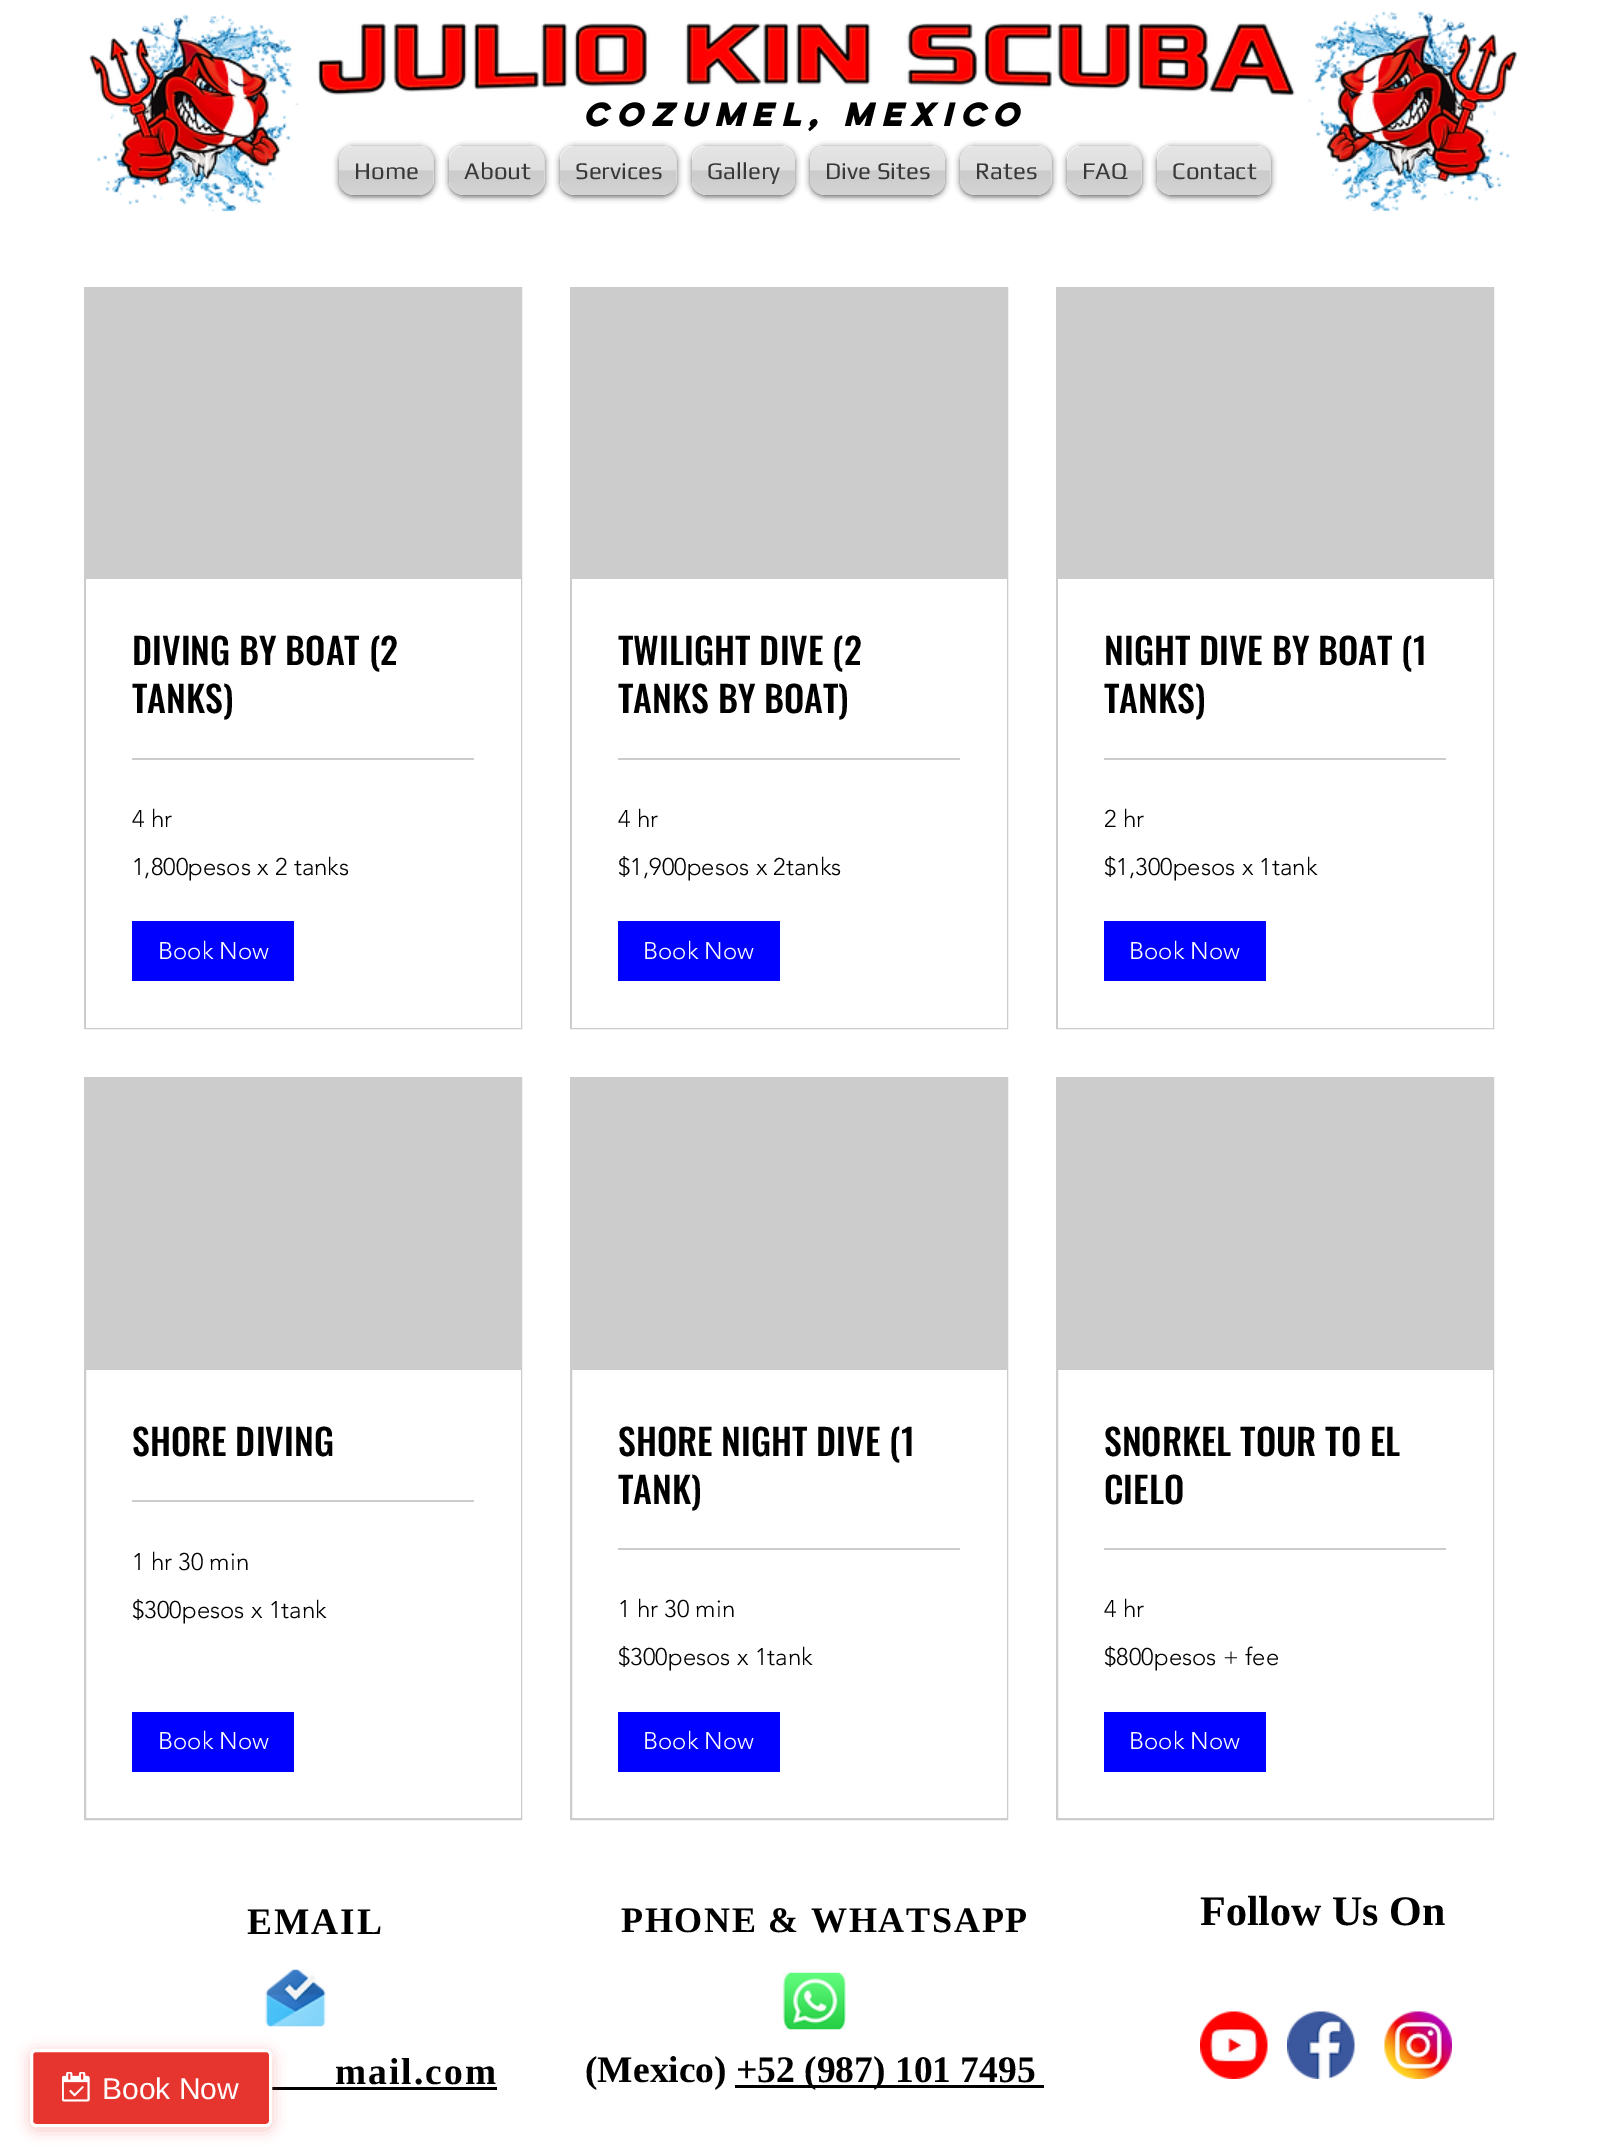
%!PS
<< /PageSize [1608 2156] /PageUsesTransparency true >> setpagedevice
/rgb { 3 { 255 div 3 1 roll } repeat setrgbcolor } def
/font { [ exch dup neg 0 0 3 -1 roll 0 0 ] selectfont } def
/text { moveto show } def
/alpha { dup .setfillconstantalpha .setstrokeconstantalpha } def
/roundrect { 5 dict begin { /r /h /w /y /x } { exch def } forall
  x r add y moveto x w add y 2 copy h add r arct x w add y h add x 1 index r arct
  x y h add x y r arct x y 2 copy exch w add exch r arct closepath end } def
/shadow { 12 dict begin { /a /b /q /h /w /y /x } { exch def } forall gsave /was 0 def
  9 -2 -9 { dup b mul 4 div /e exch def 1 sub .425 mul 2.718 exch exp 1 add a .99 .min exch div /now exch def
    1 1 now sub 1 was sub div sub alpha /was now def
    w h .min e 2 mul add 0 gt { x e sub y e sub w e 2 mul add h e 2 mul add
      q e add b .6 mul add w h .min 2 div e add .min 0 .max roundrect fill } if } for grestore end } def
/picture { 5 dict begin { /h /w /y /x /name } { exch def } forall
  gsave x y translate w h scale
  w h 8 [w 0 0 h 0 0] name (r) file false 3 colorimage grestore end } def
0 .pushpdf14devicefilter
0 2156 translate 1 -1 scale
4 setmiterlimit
255 255 255 rgb
0 0 1608 2156 rectfill
(img_01.rgb) 89 14 210 198 picture
(img_02.rgb) 318 23 977 73 picture
(img_03.rgb) 1308 11 209 200 picture
0 0 0 rgb
339 147 95 50 15 3 0.6 shadow
219 219 219 rgb
339 146 95 49 15 roundrect fill
(img_04.rgb) 339 146 94 49 picture
0 0 0 rgb
449 147 96 50 15 3 0.6 shadow
219 219 219 rgb
449 146 96 49 15 roundrect fill
(img_05.rgb) 449 146 95 49 picture
0 0 0 rgb
560 147 117 50 15 3 0.6 shadow
219 219 219 rgb
560 146 117 49 15 roundrect fill
(img_06.rgb) 560 146 116 49 picture
0 0 0 rgb
692 147 103 50 15 3 0.6 shadow
219 219 219 rgb
692 146 103 49 15 roundrect fill
(img_07.rgb) 692 146 103 49 picture
0 0 0 rgb
810 147 135 50 15 3 0.6 shadow
219 219 219 rgb
810 146 135 49 15 roundrect fill
(img_08.rgb) 810 146 135 49 picture
0 0 0 rgb
960 147 92 50 15 3 0.6 shadow
219 219 219 rgb
960 146 92 49 15 roundrect fill
(img_09.rgb) 960 146 91 49 picture
0 0 0 rgb
1067 147 75 50 15 3 0.6 shadow
219 219 219 rgb
1067 146 75 49 15 roundrect fill
(img_10.rgb) 1067 146 74 49 picture
0 0 0 rgb
1157 147 114 50 15 3 0.6 shadow
219 219 219 rgb
1157 146 114 49 15 roundrect fill
(img_11.rgb) 1157 146 113 49 picture
204 204 204 rgb
2 setlinewidth
85 288 436 740 rectstroke
86 289 434 290 rectfill
255 255 255 rgb
86 579 435 449 rectfill
204 204 204 rgb
132 758 342 2 rectfill
0 0 255 rgb
132 921 162 60 rectfill
204 204 204 rgb
571 288 436 740 rectstroke
572 289 434 290 rectfill
255 255 255 rgb
572 579 435 449 rectfill
204 204 204 rgb
618 758 342 2 rectfill
0 0 255 rgb
618 921 162 60 rectfill
204 204 204 rgb
1057 288 436 740 rectstroke
1058 289 434 290 rectfill
255 255 255 rgb
1058 579 435 449 rectfill
204 204 204 rgb
1104 758 342 2 rectfill
0 0 255 rgb
1104 921 162 60 rectfill
204 204 204 rgb
85 1078 436 741 rectstroke
86 1079 434 291 rectfill
255 255 255 rgb
520 1370 1 448 rectfill
204 204 204 rgb
132 1500 342 2 rectfill
0 0 255 rgb
132 1712 162 60 rectfill
204 204 204 rgb
571 1078 436 741 rectstroke
572 1079 434 291 rectfill
255 255 255 rgb
1006 1370 1 448 rectfill
204 204 204 rgb
618 1548 342 2 rectfill
0 0 255 rgb
618 1712 162 60 rectfill
204 204 204 rgb
1057 1078 436 741 rectstroke
1058 1079 434 291 rectfill
255 255 255 rgb
1492 1370 1 448 rectfill
204 204 204 rgb
1104 1548 342 2 rectfill
0 0 255 rgb
1104 1712 162 60 rectfill
(img_12.rgb) 783 1972 63 58 picture
0 0 0 rgb
272 2087 225 3 rectfill
735 2085 309 3 rectfill
(img_13.rgb) 1200 2011 68 68 picture
(img_14.rgb) 1287 2011 68 68 picture
(img_15.rgb) 1384 2011 68 68 picture
(img_16.rgb) 265 1969 61 58 picture
230 52 47 rgb
30 2052 242 78 6 7.5 0.3 shadow
31.5 2050.5 239 75 4.5 roundrect gsave fill grestore
255 255 255 rgb
3 setlinewidth
stroke
(img_17.rgb) 62 2072 28 30 picture
/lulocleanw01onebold-BoldItalic 30 font
0 0 0 rgb
583 126 moveto 1.5 0 (COZUMEL, MEXICO) ashow
/Play-Regular 24 font
56 56 56 rgb
(Home) 354 179 text
(About) 464 179 text
(Services) 575 179 text
(Gallery) 707 179 text
(Dive Sites) 825 179 text
(Rates) 975 179 text
(FAQ) 1082 179 text
(Contact) 1172 179 text
/Oswald-Medium 36 font
0 0 0 rgb
(DIVING BY BOAT \(2) 132 665 text
(TANKS\)) 132 713 text
/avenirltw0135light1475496-Light 24 font
(4 hr) 132 827 text
(1,800pesos x 2 tanks) 132 875 text
255 255 255 rgb
(Book Now) 158 959 text
/Oswald-Medium 36 font
0 0 0 rgb
(TWILIGHT DIVE \(2) 618 665 text
(TANKS BY BOAT\)) 618 713 text
/avenirltw0135light1475496-Light 24 font
(4 hr) 618 827 text
($1,900pesos x 2tanks) 618 875 text
255 255 255 rgb
(Book Now) 643 959 text
/Oswald-Medium 36 font
0 0 0 rgb
(NIGHT DIVE BY BOAT \(1) 1104 665 text
(TANKS\)) 1104 713 text
/avenirltw0135light1475496-Light 24 font
(2 hr) 1104 827 text
($1,300pesos x 1tank) 1104 875 text
255 255 255 rgb
(Book Now) 1129 959 text
/Oswald-Medium 36 font
0 0 0 rgb
(SHORE DIVING) 132 1456 text
/avenirltw0135light1475496-Light 24 font
(1 hr 30 min) 132 1570 text
($300pesos x 1tank) 132 1618 text
255 255 255 rgb
(Book Now) 158 1749 text
/Oswald-Medium 36 font
0 0 0 rgb
(SHORE NIGHT DIVE \(1) 618 1456 text
(TANK\)) 618 1504 text
/avenirltw0135light1475496-Light 24 font
(1 hr 30 min) 618 1617 text
($300pesos x 1tank) 618 1665 text
255 255 255 rgb
(Book Now) 643 1749 text
/Oswald-Medium 36 font
0 0 0 rgb
(SNORKEL TOUR TO EL) 1104 1456 text
(CIELO) 1104 1504 text
/avenirltw0135light1475496-Light 24 font
(4 hr) 1104 1617 text
($800pesos + fee) 1104 1665 text
255 255 255 rgb
(Book Now) 1129 1749 text
/LiberationSerif-Bold 37.5 font
0 0 0 rgb
247 1934 moveto 2 0 (EMAIL) ashow
/LiberationSerif-Bold 36 font
621 1932 moveto 1.75 0 (PHONE & WHATSAPP) ashow
/LiberationSerif-Bold 42 font
(Follow Us On) 1200 1925 text
/LiberationSerif-Bold 37.5 font
335 2084 moveto 2 0 (mail.com) ashow
(\(Mexico\)) 585 2082 text
(+52 \(987\) 101 7495) 736 2082 text
/LiberationSans-Regular 30 font
255 255 255 rgb
(Book Now) 102 2099 text
.poppdf14devicefilter showpage
